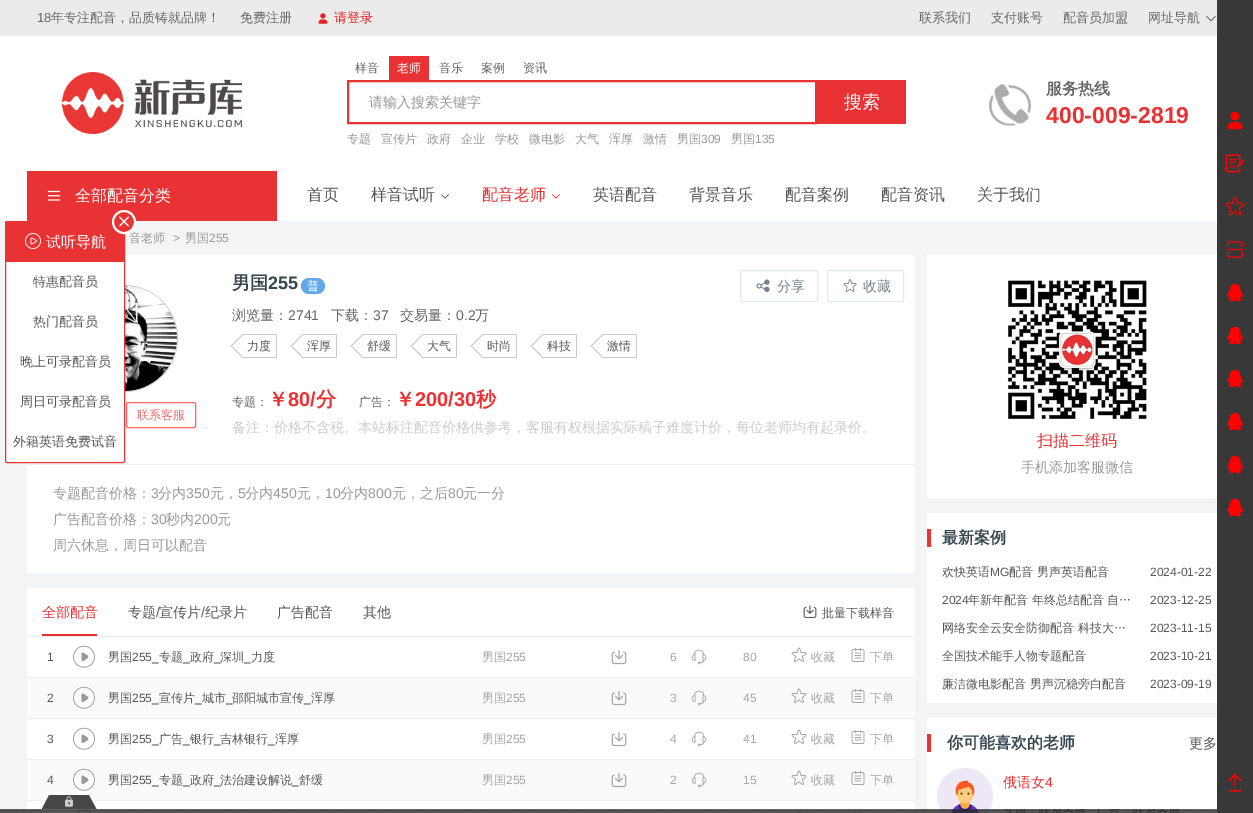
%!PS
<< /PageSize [1253 813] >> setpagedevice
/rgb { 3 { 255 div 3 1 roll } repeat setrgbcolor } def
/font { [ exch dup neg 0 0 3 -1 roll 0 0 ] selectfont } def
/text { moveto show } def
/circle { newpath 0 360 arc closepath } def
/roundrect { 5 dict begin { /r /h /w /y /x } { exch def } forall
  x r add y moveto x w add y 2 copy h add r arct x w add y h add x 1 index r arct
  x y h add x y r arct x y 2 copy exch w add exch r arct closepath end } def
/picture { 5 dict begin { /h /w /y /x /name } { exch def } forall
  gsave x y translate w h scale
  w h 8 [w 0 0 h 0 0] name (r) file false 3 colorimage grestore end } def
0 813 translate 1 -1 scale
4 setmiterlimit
243 244 245 rgb
0 0 1253 813 rectfill
235 235 235 rgb
0 0 1217 36 rectfill
(img_01.rgb) 318 13 10 11 picture
(img_02.rgb) 1206 16 10 6 picture
56 56 56 rgb
1217 0 36 813 rectfill
(img_03.rgb) 1227 111 16 19 picture
(img_04.rgb) 1225 154 20 19 picture
(img_05.rgb) 1225 197 20 19 picture
(img_06.rgb) 1226 241 18 17 picture
(img_07.rgb) 1227 283 16 19 picture
(img_07.rgb) 1227 326 16 19 picture
(img_07.rgb) 1227 369 16 19 picture
(img_07.rgb) 1227 412 16 19 picture
(img_07.rgb) 1227 455 16 19 picture
(img_07.rgb) 1227 498 16 19 picture
(img_08.rgb) 1227 773 16 19 picture
255 255 255 rgb
0 36 1217 185 rectfill
(img_09.rgb) 62 72 180 62 picture
233 50 52 rgb
389 56 40 24 rectfill
2 setlinewidth
348 81 468 42 rectstroke
817 80 89 44 rectfill
(img_10.rgb) 989 84 42 42 picture
27 171 250 50 rectfill
(img_11.rgb) 47 190 14 11 picture
(img_12.rgb) 441 194 8 5 picture
(img_13.rgb) 552 194 8 5 picture
255 255 255 rgb
27 255 888 318 rectfill
204 204 204 rgb
1 setlinewidth
70.5 285.5 107 106 53 roundrect stroke
(img_14.rgb) 125 286 52 105 picture
249 104 104 rgb
126.5 402.5 69 25 1.5 roundrect stroke
98 168 234 rgb
301 278 24 16 8 roundrect fill
228 234 236 rgb
740.5 270.5 77 31 1.5 roundrect stroke
(img_15.rgb) 756 279 14 13 picture
827.5 270.5 76 31 1.5 roundrect stroke
(img_16.rgb) 843 279 14 13 picture
204 204 204 rgb
242 334 35 1 rectfill
276 334 1 24 rectfill
242 357 35 1 rectfill
242.5 356.5 moveto -0.5 1 rlineto -11.5 -11.5 rlineto 1 -0.5 rlineto closepath fill
242.5 335.5 moveto -11 11 rlineto -1 -0.5 rlineto 11.5 -11.5 rlineto closepath fill
302 334 35 1 rectfill
336 334 1 24 rectfill
302 357 35 1 rectfill
302.5 356.5 moveto -0.5 1 rlineto -11.5 -11.5 rlineto 1 -0.5 rlineto closepath fill
302.5 335.5 moveto -11 11 rlineto -1 -0.5 rlineto 11.5 -11.5 rlineto closepath fill
362 334 35 1 rectfill
396 334 1 24 rectfill
362 357 35 1 rectfill
362.5 356.5 moveto -0.5 1 rlineto -11.5 -11.5 rlineto 1 -0.5 rlineto closepath fill
362.5 335.5 moveto -11 11 rlineto -1 -0.5 rlineto 11.5 -11.5 rlineto closepath fill
422 334 35 1 rectfill
456 334 1 24 rectfill
422 357 35 1 rectfill
422.5 356.5 moveto -0.5 1 rlineto -11.5 -11.5 rlineto 1 -0.5 rlineto closepath fill
422.5 335.5 moveto -11 11 rlineto -1 -0.5 rlineto 11.5 -11.5 rlineto closepath fill
482 334 35 1 rectfill
516 334 1 24 rectfill
482 357 35 1 rectfill
482.5 356.5 moveto -0.5 1 rlineto -11.5 -11.5 rlineto 1 -0.5 rlineto closepath fill
482.5 335.5 moveto -11 11 rlineto -1 -0.5 rlineto 11.5 -11.5 rlineto closepath fill
542 334 35 1 rectfill
576 334 1 24 rectfill
542 357 35 1 rectfill
542.5 356.5 moveto -0.5 1 rlineto -11.5 -11.5 rlineto 1 -0.5 rlineto closepath fill
542.5 335.5 moveto -11 11 rlineto -1 -0.5 rlineto 11.5 -11.5 rlineto closepath fill
602 334 35 1 rectfill
636 334 1 24 rectfill
602 357 35 1 rectfill
602.5 356.5 moveto -0.5 1 rlineto -11.5 -11.5 rlineto 1 -0.5 rlineto closepath fill
602.5 335.5 moveto -11 11 rlineto -1 -0.5 rlineto 11.5 -11.5 rlineto closepath fill
238 238 238 rgb
27 464 888 1 rectfill
255 255 255 rgb
27 588 888 225 rectfill
238 238 238 rgb
27 636 888 1 rectfill
233 50 52 rgb
42 634 55 2 rectfill
(img_17.rgb) 803 605 14 13 picture
238 238 238 rgb
26 677 889 1 rectfill
(img_18.rgb) 73 645 22 23 picture
(img_19.rgb) 611 650 16 15 picture
(img_20.rgb) 691 649 16 16 picture
(img_21.rgb) 791 647 16 15 picture
(img_22.rgb) 851 648 14 14 picture
250 250 250 rgb
27 678 888 40 rectfill
238 238 238 rgb
26 718 889 1 rectfill
(img_23.rgb) 73 686 22 23 picture
(img_24.rgb) 611 691 16 15 picture
(img_25.rgb) 691 690 16 16 picture
(img_26.rgb) 791 688 16 15 picture
(img_27.rgb) 851 689 14 14 picture
26 759 889 1 rectfill
(img_18.rgb) 73 727 22 23 picture
(img_19.rgb) 611 732 16 15 picture
(img_20.rgb) 691 731 16 16 picture
(img_21.rgb) 791 729 16 15 picture
(img_22.rgb) 851 730 14 14 picture
250 250 250 rgb
27 760 888 40 rectfill
238 238 238 rgb
26 800 889 1 rectfill
(img_23.rgb) 73 768 22 23 picture
(img_24.rgb) 611 773 16 15 picture
(img_25.rgb) 691 772 16 16 picture
(img_26.rgb) 791 770 16 15 picture
(img_27.rgb) 851 771 14 14 picture
(img_28.rgb) 76 809 16 4 picture
(img_29.rgb) 797 811 4 2 picture
(img_30.rgb) 855 812 6 1 picture
255 255 255 rgb
927 255 290 243 rectfill
(img_31.rgb) 1006 278 143 141 picture
927 513 290 190 rectfill
233 50 52 rgb
927 529 4 18 rectfill
255 255 255 rgb
927 718 290 95 rectfill
233 50 52 rgb
927 734 4 18 rectfill
(img_32.rgb) 937 768 56 45 picture
255 255 255 rgb
5.5 221.5 119 241 1.5 roundrect gsave fill grestore
233 50 52 rgb
stroke
6 222 118 40 rectfill
(img_34.rgb) 25 233 16 16 picture
(img_35.rgb) 0 809 1217 4 picture
(img_36.rgb) 41 795 56 14 picture
(img_37.rgb) 65 796 8 11 picture
/LiberationSans-Regular 13 font
102 102 102 rgb
(18) 37 22 text
/WenQuanYiZenHei-Medium 13 font
(年专注配音，品质铸就品牌！) 51 22 text
(免费注册) 240 22 text
230 32 32 rgb
(请登录) 334 22 text
102 102 102 rgb
(联系我们) 919 22 text
(支付账号) 991 22 text
(配音员加盟) 1063 22 text
(网址导航) 1148 22 text
/WenQuanYiZenHei-Medium 12 font
(样音) 355 72 text
255 255 255 rgb
(老师) 397 72 text
102 102 102 rgb
(音乐) 439 72 text
(案例) 481 72 text
(资讯) 523 72 text
/WenQuanYiZenHei-Medium 14 font
153 153 153 rgb
(请输入搜索关键字) 369 107 text
/WenQuanYiZenHei-Medium 18 font
255 255 255 rgb
(搜索) 844 108 text
/WenQuanYiZenHei-Medium 12 font
153 153 153 rgb
(专题) 347 143 text
(宣传片) 381 143 text
(政府) 427 143 text
(企业) 461 143 text
(学校) 495 143 text
(微电影) 529 143 text
(大气) 575 143 text
(浑厚) 609 143 text
(激情) 643 143 text
(男国) 677 143 text
/LiberationSans-Regular 12 font
(309) 701 143 text
/WenQuanYiZenHei-Medium 12 font
(男国) 731 143 text
/LiberationSans-Regular 12 font
(135) 755 143 text
/WenQuanYiZenHei-Bold 16 font
102 102 102 rgb
(服务热线) 1046 94 text
/LiberationSans-Bold 23 font
233 50 52 rgb
(400-009-2819) 1046 123 text
/WenQuanYiZenHei-Medium 16 font
255 255 255 rgb
(全部配音分类) 75 201 text
87 87 87 rgb
(首页) 307 200 text
(样音试听) 371 200 text
233 50 52 rgb
(配音老师) 482 200 text
87 87 87 rgb
(英语配音) 593 200 text
(背景音乐) 689 200 text
(配音案例) 785 200 text
(配音资讯) 881 200 text
(关于我们) 977 200 text
/WenQuanYiZenHei-Medium 12 font
153 153 153 rgb
(音老师) 129 242 text
/LiberationSans-Regular 12 font
(>) 173 242 text
/WenQuanYiZenHei-Medium 12 font
(男国) 185 242 text
/LiberationSans-Regular 12 font
(255) 209 242 text
/WenQuanYiZenHei-Medium 12 font
249 104 104 rgb
(联系客服) 137 419 text
/WenQuanYiZenHei-Bold 18 font
55 71 79 rgb
(男国) 232 289 text
/LiberationSans-Bold 18 font
(255) 268 289 text
/WenQuanYiZenHei-Medium 12 font
255 255 255 rgb
(普) 307 290 text
/WenQuanYiZenHei-Medium 14 font
118 131 143 rgb
(分享) 777 291 text
(收藏) 863 291 text
102 102 102 rgb
(浏览量：) 232 320 text
/LiberationSans-Regular 14 font
(2741) 288 320 text
/WenQuanYiZenHei-Medium 14 font
(下载：) 331 320 text
/LiberationSans-Regular 14 font
(37) 373 320 text
/WenQuanYiZenHei-Medium 14 font
(交易量：) 400 320 text
/LiberationSans-Regular 14 font
(0.2) 456 320 text
/WenQuanYiZenHei-Medium 14 font
(万) 475 320 text
/WenQuanYiZenHei-Medium 12 font
87 87 87 rgb
(力度) 247 350 text
(浑厚) 307 350 text
(舒缓) 367 350 text
(大气) 427 350 text
(时尚) 487 350 text
(科技) 547 350 text
(激情) 607 350 text
102 102 102 rgb
(专题：) 232 406 text
/WenQuanYiZenHei-Bold 20 font
233 50 52 rgb
(￥) 268 406 text
/LiberationSans-Bold 20 font
(80/) 288 406 text
/WenQuanYiZenHei-Bold 20 font
(分) 316 406 text
/WenQuanYiZenHei-Medium 12 font
102 102 102 rgb
(广告：) 359 406 text
/WenQuanYiZenHei-Bold 20 font
233 50 52 rgb
(￥) 395 406 text
/LiberationSans-Bold 20 font
(200/30) 415 406 text
/WenQuanYiZenHei-Bold 20 font
(秒) 476 406 text
/WenQuanYiZenHei-Medium 14 font
204 204 204 rgb
(备注：价格不含税。本站标注配音价格供参考，客服有权根据实际稿子难度计价，每位老师均有起录价。) 232 432 text
153 153 153 rgb
(专题配音价格：) 53 498 text
/LiberationSans-Regular 14 font
(3) 151 498 text
/WenQuanYiZenHei-Medium 14 font
(分内) 158 498 text
/LiberationSans-Regular 14 font
(350) 186 498 text
/WenQuanYiZenHei-Medium 14 font
(元，) 210 498 text
/LiberationSans-Regular 14 font
(5) 238 498 text
/WenQuanYiZenHei-Medium 14 font
(分内) 245 498 text
/LiberationSans-Regular 14 font
(450) 273 498 text
/WenQuanYiZenHei-Medium 14 font
(元，) 297 498 text
/LiberationSans-Regular 14 font
(10) 325 498 text
/WenQuanYiZenHei-Medium 14 font
(分内) 340 498 text
/LiberationSans-Regular 14 font
(800) 368 498 text
/WenQuanYiZenHei-Medium 14 font
(元，之后) 392 498 text
/LiberationSans-Regular 14 font
(80) 448 498 text
/WenQuanYiZenHei-Medium 14 font
(元一分) 463 498 text
(广告配音价格：) 53 524 text
/LiberationSans-Regular 14 font
(30) 151 524 text
/WenQuanYiZenHei-Medium 14 font
(秒内) 166 524 text
/LiberationSans-Regular 14 font
(200) 194 524 text
/WenQuanYiZenHei-Medium 14 font
(元) 217 524 text
(周六休息，周日可以配音) 53 550 text
233 50 52 rgb
(全部配音) 42 617 text
87 87 87 rgb
(专题) 128 617 text
/LiberationSans-Regular 14 font
(/) 156 617 text
/WenQuanYiZenHei-Medium 14 font
(宣传片) 159 617 text
/LiberationSans-Regular 14 font
(/) 201 617 text
/WenQuanYiZenHei-Medium 14 font
(纪录片) 205 617 text
(广告配音) 277 617 text
(其他) 363 617 text
/WenQuanYiZenHei-Medium 12 font
(批量下载样音) 822 617 text
/LiberationSans-Regular 12 font
(1) 47 661 text
/WenQuanYiZenHei-Medium 12 font
(男国) 108 661 text
/LiberationSans-Regular 12 font
(255_) 132 661 text
/WenQuanYiZenHei-Medium 12 font
(专题) 159 661 text
/LiberationSans-Regular 12 font
(_) 183 661 text
/WenQuanYiZenHei-Medium 12 font
(政府) 190 661 text
/LiberationSans-Regular 12 font
(_) 214 661 text
/WenQuanYiZenHei-Medium 12 font
(深圳) 220 661 text
/LiberationSans-Regular 12 font
(_) 244 661 text
/WenQuanYiZenHei-Medium 12 font
(力度) 251 661 text
166 166 166 rgb
(男国) 482 661 text
/LiberationSans-Regular 12 font
(255) 506 661 text
(6) 670 661 text
(80) 743 661 text
/WenQuanYiZenHei-Medium 12 font
(收藏) 811 661 text
(下单) 870 661 text
/LiberationSans-Regular 12 font
87 87 87 rgb
(2) 47 702 text
/WenQuanYiZenHei-Medium 12 font
(男国) 108 702 text
/LiberationSans-Regular 12 font
(255_) 132 702 text
/WenQuanYiZenHei-Medium 12 font
(宣传片) 159 702 text
/LiberationSans-Regular 12 font
(_) 195 702 text
/WenQuanYiZenHei-Medium 12 font
(城市) 202 702 text
/LiberationSans-Regular 12 font
(_) 226 702 text
/WenQuanYiZenHei-Medium 12 font
(邵阳城市宣传) 232 702 text
/LiberationSans-Regular 12 font
(_) 304 702 text
/WenQuanYiZenHei-Medium 12 font
(浑厚) 311 702 text
166 166 166 rgb
(男国) 482 702 text
/LiberationSans-Regular 12 font
(255) 506 702 text
(3) 670 702 text
(45) 743 702 text
/WenQuanYiZenHei-Medium 12 font
(收藏) 811 702 text
(下单) 870 702 text
/LiberationSans-Regular 12 font
87 87 87 rgb
(3) 47 743 text
/WenQuanYiZenHei-Medium 12 font
(男国) 108 743 text
/LiberationSans-Regular 12 font
(255_) 132 743 text
/WenQuanYiZenHei-Medium 12 font
(广告) 159 743 text
/LiberationSans-Regular 12 font
(_) 183 743 text
/WenQuanYiZenHei-Medium 12 font
(银行) 190 743 text
/LiberationSans-Regular 12 font
(_) 214 743 text
/WenQuanYiZenHei-Medium 12 font
(吉林银行) 220 743 text
/LiberationSans-Regular 12 font
(_) 268 743 text
/WenQuanYiZenHei-Medium 12 font
(浑厚) 275 743 text
166 166 166 rgb
(男国) 482 743 text
/LiberationSans-Regular 12 font
(255) 506 743 text
(4) 670 743 text
(41) 743 743 text
/WenQuanYiZenHei-Medium 12 font
(收藏) 811 743 text
(下单) 870 743 text
/LiberationSans-Regular 12 font
87 87 87 rgb
(4) 47 784 text
/WenQuanYiZenHei-Medium 12 font
(男国) 108 784 text
/LiberationSans-Regular 12 font
(255_) 132 784 text
/WenQuanYiZenHei-Medium 12 font
(专题) 159 784 text
/LiberationSans-Regular 12 font
(_) 183 784 text
/WenQuanYiZenHei-Medium 12 font
(政府) 190 784 text
/LiberationSans-Regular 12 font
(_) 214 784 text
/WenQuanYiZenHei-Medium 12 font
(法治建设解说) 220 784 text
/LiberationSans-Regular 12 font
(_) 292 784 text
/WenQuanYiZenHei-Medium 12 font
(舒缓) 299 784 text
166 166 166 rgb
(男国) 482 784 text
/LiberationSans-Regular 12 font
(255) 506 784 text
(2) 670 784 text
(15) 743 784 text
/WenQuanYiZenHei-Medium 12 font
(收藏) 811 784 text
(下单) 870 784 text
/WenQuanYiZenHei-Medium 16 font
233 50 52 rgb
(扫描二维码) 1037 446 text
/WenQuanYiZenHei-Medium 14 font
153 153 153 rgb
(手机添加客服微信) 1021 472 text
/WenQuanYiZenHei-Bold 16 font
55 71 79 rgb
(最新案例) 942 543 text
/WenQuanYiZenHei-Medium 12 font
87 87 87 rgb
(欢快英语) 942 576 text
/LiberationSans-Regular 12 font
(MG) 990 576 text
/WenQuanYiZenHei-Medium 12 font
(配音 男声英语配音) 1009 576 text
/LiberationSans-Regular 12 font
(2024-01-22) 1150 576 text
(2024) 942 604 text
/WenQuanYiZenHei-Medium 12 font
(年新年配音 年终总结配音 自…) 968 604 text
/LiberationSans-Regular 12 font
(2023-12-25) 1150 604 text
/WenQuanYiZenHei-Medium 12 font
(网络安全云安全防御配音 科技大…) 942 632 text
/LiberationSans-Regular 12 font
(2023-11-15) 1150 632 text
/WenQuanYiZenHei-Medium 12 font
(全国技术能手人物专题配音) 942 660 text
/LiberationSans-Regular 12 font
(2023-10-21) 1150 660 text
/WenQuanYiZenHei-Medium 12 font
(廉洁微电影配音 男声沉稳旁白配音) 942 688 text
/LiberationSans-Regular 12 font
(2023-09-19) 1150 688 text
/WenQuanYiZenHei-Bold 16 font
55 71 79 rgb
(你可能喜欢的老师) 947 748 text
/WenQuanYiZenHei-Medium 14 font
87 87 87 rgb
(更多) 1189 748 text
233 50 52 rgb
(俄语女) 1003 787 text
/LiberationSans-Regular 14 font
(4) 1045 787 text
124 222 11 circle gsave fill grestore
255 255 255 rgb
2 setlinewidth
stroke
(img_33.rgb) 119 216 10 11 picture
/WenQuanYiZenHei-Medium 15 font
(试听导航) 46 247 text
/WenQuanYiZenHei-Medium 13 font
87 87 87 rgb
(特惠配音员) 33 286 text
(热门配音员) 33 326 text
(晚上可录配音员) 20 366 text
(周日可录配音员) 20 406 text
(外籍英语免费试音) 13 446 text
showpage
